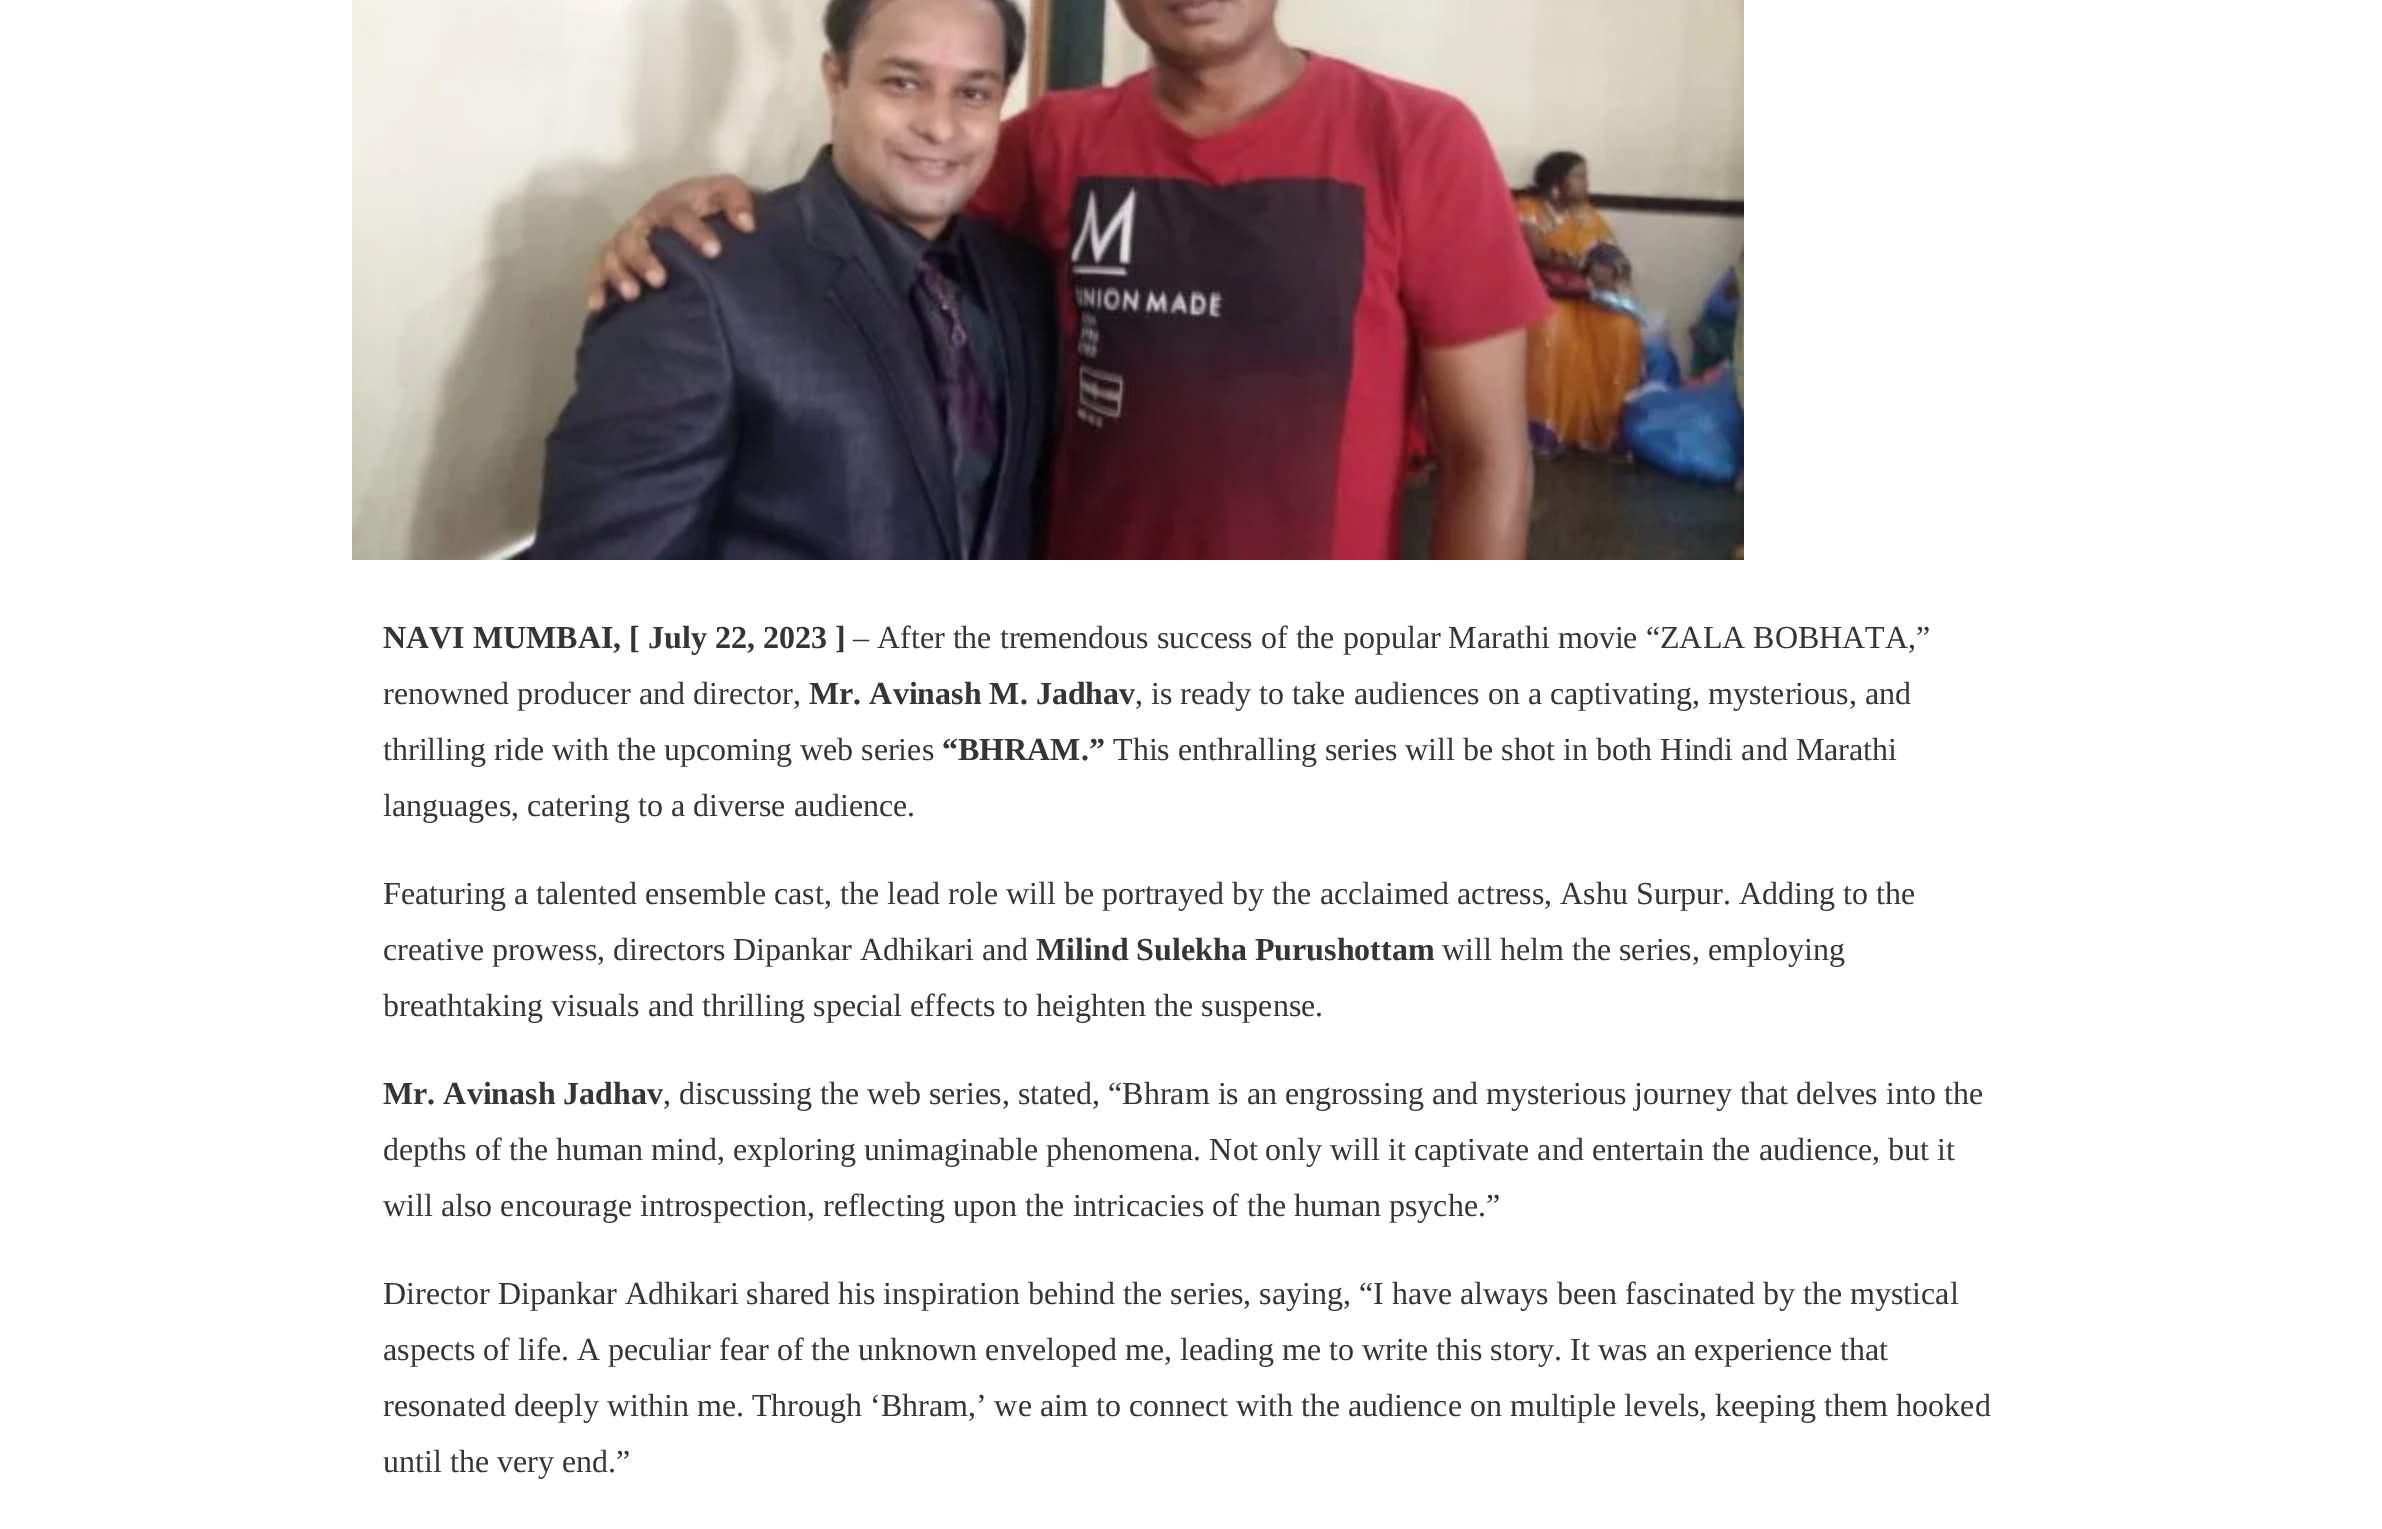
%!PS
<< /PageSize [2382 1529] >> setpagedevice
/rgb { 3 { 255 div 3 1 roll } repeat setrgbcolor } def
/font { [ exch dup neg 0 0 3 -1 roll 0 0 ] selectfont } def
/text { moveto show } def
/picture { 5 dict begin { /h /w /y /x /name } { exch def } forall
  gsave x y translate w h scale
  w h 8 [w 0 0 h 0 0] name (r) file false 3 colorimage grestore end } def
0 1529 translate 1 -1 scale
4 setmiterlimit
255 255 255 rgb
0 0 2382 1529 rectfill
(img_01.rgb) 352 0 1392 560 picture
/LiberationSerif-Bold 32 font
53 53 53 rgb
(NAVI MUMBAI, [ July 22, 2023 ]) 383 648 text
/LiberationSerif-Regular 32 font
(– After the tremendous success of the popular Marathi movie “ZALA BOBHATA,”) 853 648 text
(renowned producer and director,) 383 704 text
/LiberationSerif-Bold 32 font
(Mr. Avinash M. Jadhav) 809 704 text
/LiberationSerif-Regular 32 font
(, is ready to take audiences on a captivating, mysterious, and) 1135 704 text
(thrilling ride with the upcoming web series) 383 760 text
/LiberationSerif-Bold 32 font
(“BHRAM.”) 942 760 text
/LiberationSerif-Regular 32 font
(This enthralling series will be shot in both Hindi and Marathi) 1113 760 text
(languages, catering to a diverse audience.) 383 816 text
(Featuring a talented ensemble cast, the lead role will be portrayed by the acclaimed actress, Ashu Surpur. Adding to the) 383 904 text
(creative prowess, directors Dipankar Adhikari and) 383 960 text
/LiberationSerif-Bold 32 font
(Milind Sulekha Purushottam) 1036 960 text
/LiberationSerif-Regular 32 font
(will helm the series, employing) 1442 960 text
(breathtaking visuals and thrilling special effects to heighten the suspense.) 383 1016 text
/LiberationSerif-Bold 32 font
(Mr. Avinash Jadhav) 383 1104 text
/LiberationSerif-Regular 32 font
(, discussing the web series, stated, “Bhram is an engrossing and mysterious journey that delves into the) 663 1104 text
(depths of the human mind, exploring unimaginable phenomena. Not only will it captivate and entertain the audience, but it) 383 1160 text
(will also encourage introspection, reflecting upon the intricacies of the human psyche.”) 383 1216 text
(Director Dipankar Adhikari shared his inspiration behind the series, saying, “I have always been fascinated by the mystical) 383 1304 text
(aspects of life. A peculiar fear of the unknown enveloped me, leading me to write this story. It was an experience that) 383 1360 text
(resonated deeply within me. Through ‘Bhram,’ we aim to connect with the audience on multiple levels, keeping them hooked) 383 1416 text
(until the very end.”) 383 1472 text
showpage
